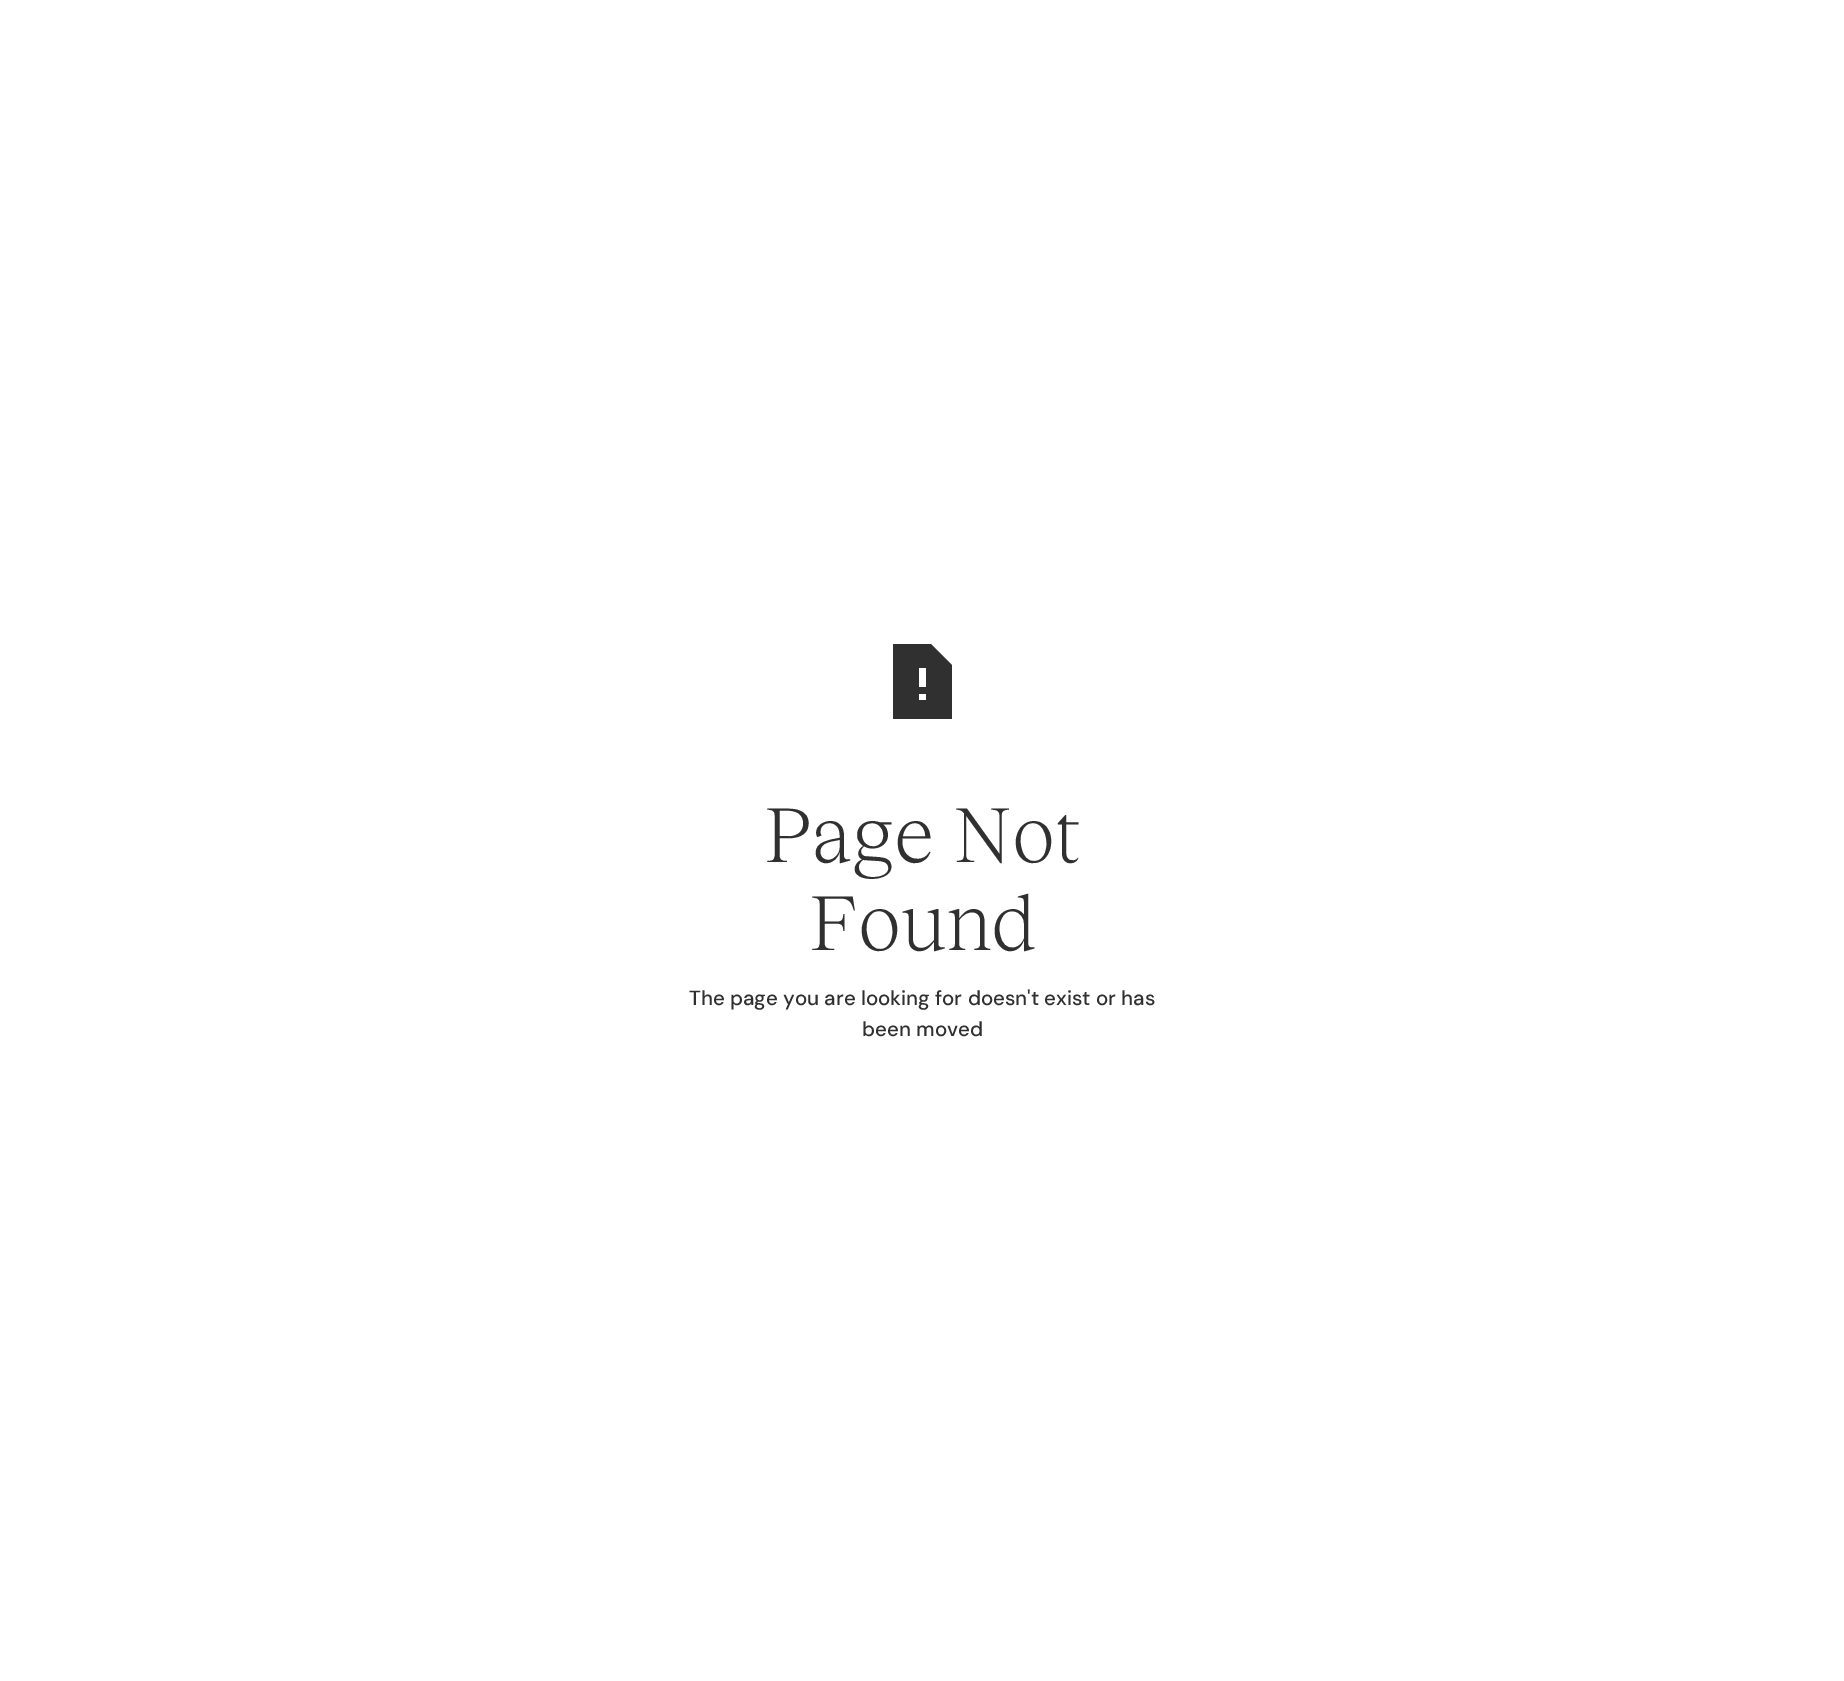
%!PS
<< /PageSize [1844 1681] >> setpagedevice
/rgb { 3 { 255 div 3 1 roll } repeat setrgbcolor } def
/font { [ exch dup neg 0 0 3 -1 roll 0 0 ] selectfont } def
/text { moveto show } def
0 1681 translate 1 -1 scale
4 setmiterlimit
255 255 255 rgb
0 0 1844 1681 rectfill
48 48 48 rgb
893 644 moveto 38 0 rlineto 21 21 rlineto 0 54 rlineto -59 0 rlineto closepath 919 668 moveto 7 0 rlineto 0 19 rlineto -7 0 rlineto closepath 919 694 moveto 7 0 rlineto 0 6 rlineto -7 0 rlineto closepath eofill
/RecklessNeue-Light 80 font
(Page Not) 764 862 text
(Found) 809 950 text
/DMSans-Medium 20.5 font
(The page you are looking for doesn't exist or has) 689 1005 text
(been moved) 862 1036 text
showpage
